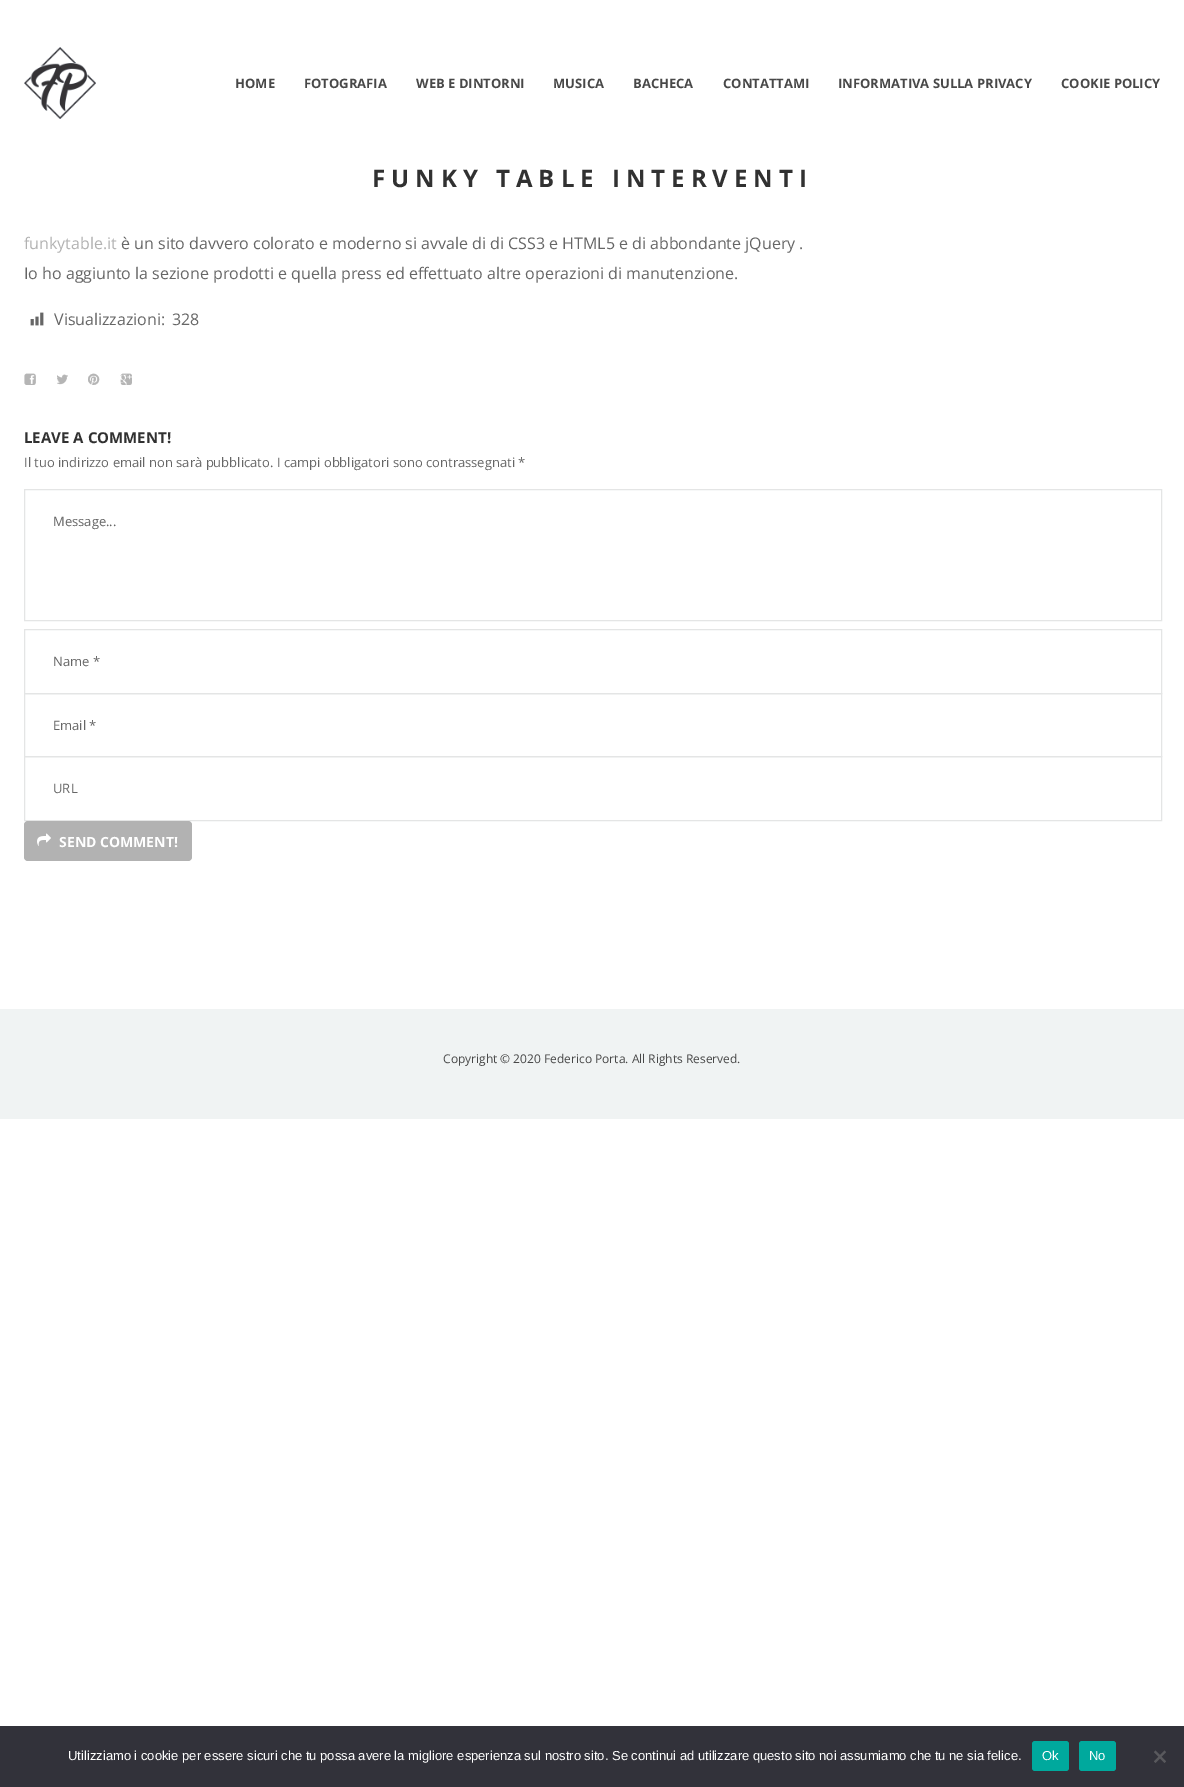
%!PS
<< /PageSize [1184 1787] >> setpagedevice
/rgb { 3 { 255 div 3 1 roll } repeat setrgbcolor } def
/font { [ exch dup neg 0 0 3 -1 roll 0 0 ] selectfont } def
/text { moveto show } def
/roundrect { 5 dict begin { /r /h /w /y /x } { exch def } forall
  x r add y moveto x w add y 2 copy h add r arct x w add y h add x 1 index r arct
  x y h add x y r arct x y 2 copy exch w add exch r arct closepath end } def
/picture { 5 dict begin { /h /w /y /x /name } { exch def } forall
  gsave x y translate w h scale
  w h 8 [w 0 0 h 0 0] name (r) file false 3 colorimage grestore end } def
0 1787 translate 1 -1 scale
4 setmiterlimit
255 255 255 rgb
0 0 1184 1787 rectfill
(img_01.rgb) 24 47 72 72 picture
(img_02.rgb) 30 312 14 14 picture
(img_03.rgb) 24 373 12 12 picture
(img_04.rgb) 57 374 11 11 picture
(img_05.rgb) 88 373 12 12 picture
(img_06.rgb) 120 373 12 12 picture
228 229 229 rgb
24.5 489.5 1137 131 rectstroke
24.5 629.5 1137 64 rectstroke
24.5 693.5 1137 63 rectstroke
24.5 756.5 1137 64 rectstroke
178 178 178 rgb
24 821 168 40 4 roundrect fill
(img_07.rgb) 37 833 14 13 picture
240 243 243 rgb
0 1009 1184 110 rectfill
50 50 58 rgb
0 1726 1184 61 rectfill
0 169 157 rgb
1032 1741 37 30 3 roundrect fill
1079 1741 37 30 3 roundrect fill
89 89 93 rgb
1164.5 1750.5 moveto 1.5 1.5 rlineto -10.5 11 rlineto -1.5 -1.5 rlineto closepath fill
1154 1752 moveto 1.5 -1.5 rlineto 10.5 11 rlineto -1.5 1.5 rlineto closepath fill
/OpenSans-Bold 13 font
72 72 72 rgb
(HOME) 235 88 text
(FOTOGRAFIA) 304 88 text
(WEB E DINTORNI) 416 88 text
(MUSICA) 553 88 text
(BACHECA) 633 88 text
(CONTATTAMI) 723 88 text
(INFORMATIVA SULLA PRIVACY) 838 88 text
(COOKIE POLICY) 1061 88 text
/OpenSans-Bold 24 font
49 49 49 rgb
372 187 moveto 6 0 (FUNKY TABLE INTERVENTI) ashow
/OpenSans-Regular 16 font
178 178 178 rgb
(funkytable.it) 24 249 text
102 102 102 rgb
(è un sito davvero colorato e moderno si avvale di di CSS3 e HTML5 e di abbondante jQuery .) 121 249 text
(Io ho aggiunto la sezione prodotti e quella press ed effettuato altre operazioni di manutenzione.) 24 279 text
(Visualizzazioni:) 54 325 text
(328) 172 325 text
/OpenSans-Bold 15 font
49 49 49 rgb
(LEAVE A COMMENT!) 24 443 text
/OpenSans-Regular 13 font
102 102 102 rgb
(Il tuo indirizzo email non sarà pubblicato. I campi obbligatori sono contrassegnati *) 24 467 text
(Message...) 53 526 text
(Name *) 53 666 text
(Email *) 53 730 text
(URL) 53 793 text
/OpenSans-Bold 14 font
255 255 255 rgb
(SEND COMMENT!) 59 847 text
/OpenSans-Regular 12 font
72 72 72 rgb
(Copyright © 2020 Federico Porta. All Rights Reserved.) 443 1063 text
/LiberationSans-Regular 13 font
255 255 255 rgb
(Utilizziamo i cookie per essere sicuri che tu possa avere la migliore esperienza sul nostro sito. Se continui ad utilizzare questo sito noi assumiamo che tu ne sia felice.) 68 1760 text
(Ok) 1042 1760 text
(No) 1089 1760 text
showpage
